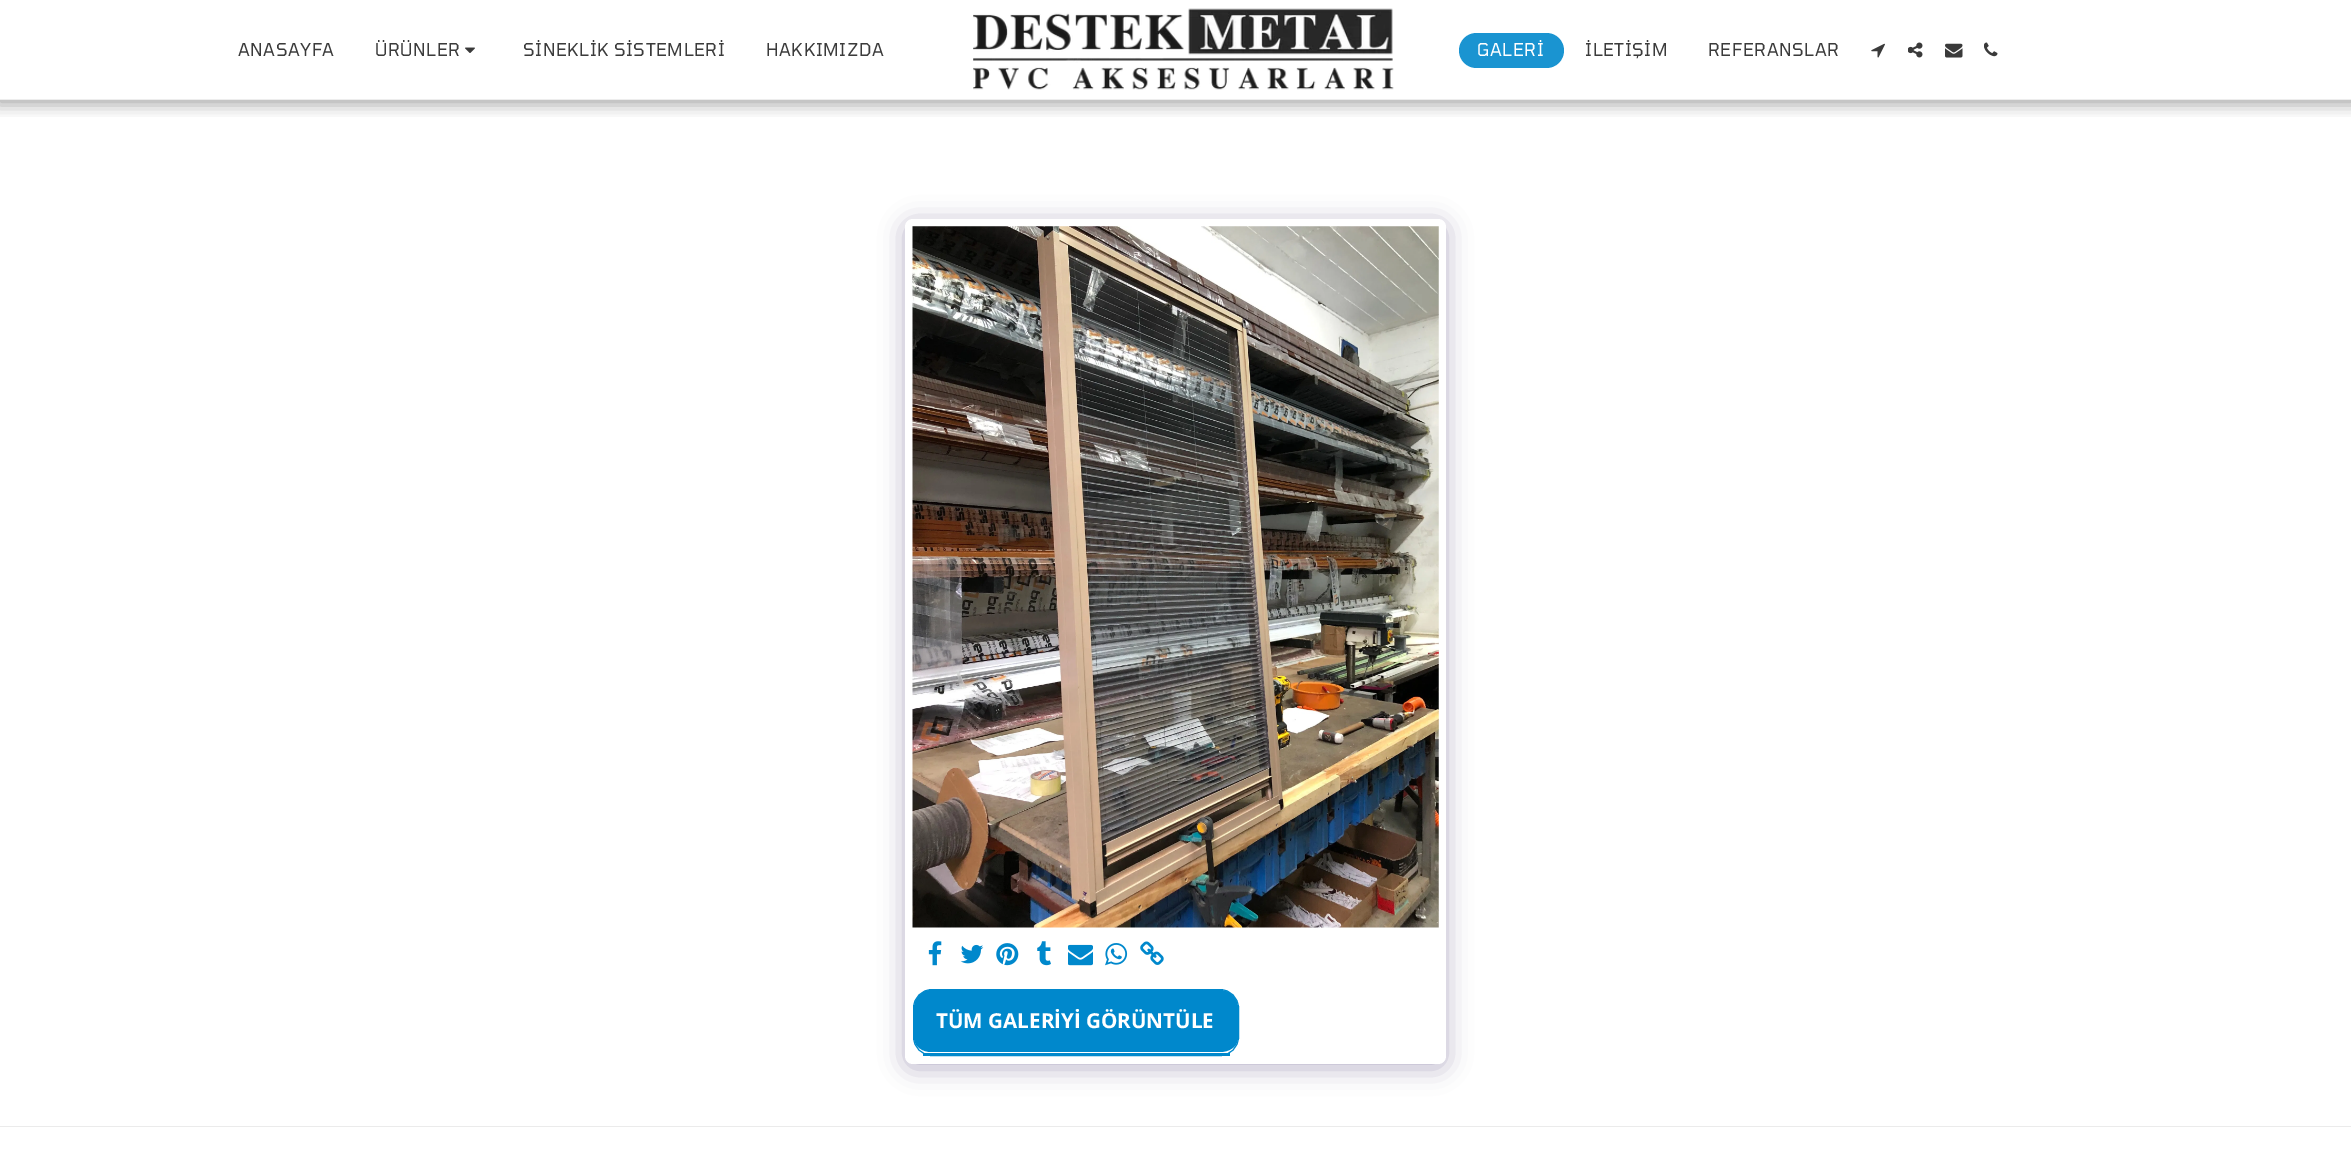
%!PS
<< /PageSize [2351 1170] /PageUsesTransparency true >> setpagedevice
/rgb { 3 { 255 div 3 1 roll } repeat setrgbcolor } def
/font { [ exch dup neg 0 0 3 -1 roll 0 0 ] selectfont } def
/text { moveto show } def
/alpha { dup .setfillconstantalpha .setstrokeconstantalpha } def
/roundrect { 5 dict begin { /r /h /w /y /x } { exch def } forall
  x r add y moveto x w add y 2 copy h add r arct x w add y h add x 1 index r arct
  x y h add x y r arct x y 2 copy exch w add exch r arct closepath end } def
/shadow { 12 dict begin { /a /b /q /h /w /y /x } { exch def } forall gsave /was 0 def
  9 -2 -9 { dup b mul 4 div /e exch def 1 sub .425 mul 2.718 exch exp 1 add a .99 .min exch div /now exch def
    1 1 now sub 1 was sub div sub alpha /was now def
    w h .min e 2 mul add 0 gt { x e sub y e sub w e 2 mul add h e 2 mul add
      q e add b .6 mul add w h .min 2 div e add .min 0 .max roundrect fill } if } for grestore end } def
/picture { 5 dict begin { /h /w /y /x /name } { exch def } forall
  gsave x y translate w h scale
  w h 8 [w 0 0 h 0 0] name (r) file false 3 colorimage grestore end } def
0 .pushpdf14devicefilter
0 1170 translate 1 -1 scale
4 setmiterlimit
255 255 255 rgb
0 0 2351 1170 rectfill
gsave
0 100 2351 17 rectclip
26 26 26 rgb
-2 0 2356 105 0 7.5 0.35 shadow
grestore
237 237 237 rgb
0 99 2351 1 rectfill
(img_01.rgb) 465 47 10 6 picture
(img_02.rgb) 973 8 421 82 picture
26 148 209 rgb
1459 33 105 35 17.5 roundrect fill
(img_03.rgb) 1871 43 14 15 picture
(img_04.rgb) 1908 42 15 16 picture
(img_05.rgb) 1945 43 18 15 picture
(img_06.rgb) 1984 42 14 15 picture
77 63 122 rgb
905 223 541 845 8 12.5 0.4 shadow
255 255 255 rgb
905 219 541 845 8 roundrect fill
(img_07.rgb) 912 226 527 702 picture
(img_08.rgb) 928 941 14 25 picture
(img_09.rgb) 960 944 24 20 picture
(img_10.rgb) 996 943 23 23 picture
(img_11.rgb) 1037 941 14 25 picture
(img_12.rgb) 1068 944 25 22 picture
(img_13.rgb) 1105 943 23 23 picture
(img_14.rgb) 1140 941 24 24 picture
0 136 204 rgb
931 990 moveto 289 0 rlineto 10 0 18 8 18 18 rcurveto 0 30 rlineto 0 8 -8 14 -18 14 rcurveto -289 0 rlineto -9 0 -17 -6 -17 -14 rcurveto 0 -30 rlineto 0 -10 8 -18 17 -18 rcurveto closepath fill
913.5 989.5 325 66 18.5 roundrect stroke
923 1053 307 3 rectfill
235 235 235 rgb
0 1126 2351 1 rectfill
/Tomorrow-Regular 17.5 font
59 59 59 rgb
238 56 moveto 0.6 0 (ANASAYFA) ashow
375 56 moveto 0.6 0 (ÜRÜNLER) ashow
523 56 moveto 0.6 0 (SİNEKLİK SİSTEMLERİ) ashow
766 56 moveto 0.6 0 (HAKKIMIZDA) ashow
255 255 255 rgb
1477 56 moveto 0.6 0 (GALERİ) ashow
59 59 59 rgb
1585 56 moveto 0.6 0 (İLETİŞİM) ashow
1708 56 moveto 0.6 0 (REFERANSLAR) ashow
/OpenSans-Bold 20.6 font
255 255 255 rgb
(TÜM GALERİYİ GÖRÜNTÜLE) 936 1028 text
.poppdf14devicefilter showpage
